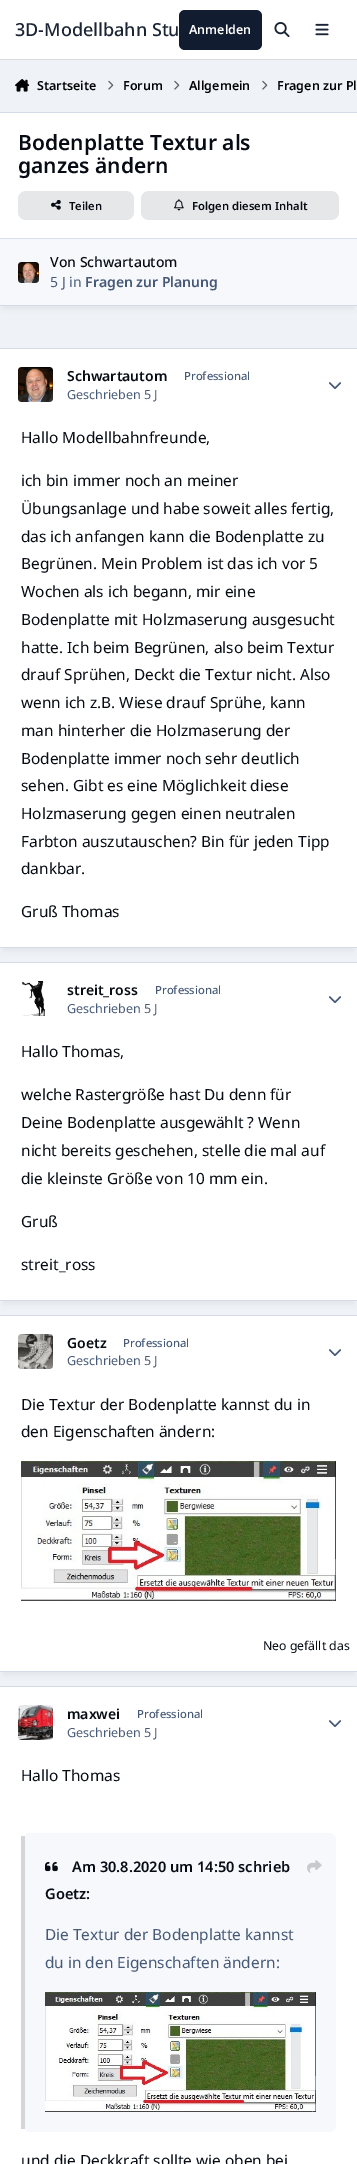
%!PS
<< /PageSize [357 2164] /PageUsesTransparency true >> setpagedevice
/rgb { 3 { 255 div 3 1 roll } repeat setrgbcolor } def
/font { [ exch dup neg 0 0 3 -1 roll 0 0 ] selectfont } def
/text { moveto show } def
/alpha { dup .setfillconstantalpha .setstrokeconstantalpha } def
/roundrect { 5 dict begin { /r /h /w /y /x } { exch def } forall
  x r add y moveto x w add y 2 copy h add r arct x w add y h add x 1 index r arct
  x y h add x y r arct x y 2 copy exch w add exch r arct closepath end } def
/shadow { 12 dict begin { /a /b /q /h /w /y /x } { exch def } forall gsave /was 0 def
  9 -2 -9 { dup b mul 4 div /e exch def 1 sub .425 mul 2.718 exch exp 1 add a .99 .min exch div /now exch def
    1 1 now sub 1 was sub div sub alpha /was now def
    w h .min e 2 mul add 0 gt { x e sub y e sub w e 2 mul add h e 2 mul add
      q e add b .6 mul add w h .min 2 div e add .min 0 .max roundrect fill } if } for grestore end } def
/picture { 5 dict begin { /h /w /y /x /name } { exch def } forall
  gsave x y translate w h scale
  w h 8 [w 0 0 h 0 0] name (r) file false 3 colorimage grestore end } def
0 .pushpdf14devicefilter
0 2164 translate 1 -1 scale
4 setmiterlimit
239 242 247 rgb
0 0 357 2164 rectfill
255 255 255 rgb
0 0 357 59 rectfill
218 218 220 rgb
0 59 357 1 rectfill
17 28 49 rgb
179 10 83 40 6 roundrect fill
(img_01.rgb) 274 22 16 15 picture
(img_02.rgb) 315 23 14 13 picture
(img_03.rgb) 15 79 15 13 picture
(img_04.rgb) 108 80 6 10 picture
(img_04.rgb) 174 80 6 10 picture
(img_04.rgb) 262 80 6 10 picture
1 3 10 rgb
3 121 351 188 0 3.5 0.05 shadow
255 255 255 rgb
0 113 357 125 rectfill
213 219 230 rgb
0 112 357 1 rectfill
0 305 357 1 rectfill
230 231 232 rgb
18 191 116 29 8 roundrect fill
(img_05.rgb) 51 199 10 11 picture
141 191 198 29 8 roundrect fill
(img_06.rgb) 174 199 10 12 picture
247 248 251 rgb
0 239 357 66 rectfill
215 223 234 rgb
0 238 357 1 rectfill
(img_07.rgb) 18 262 21 21 picture
1 3 10 rgb
3 357 351 594 0 3.5 0.05 shadow
255 255 255 rgb
0 349 357 598 rectfill
213 219 230 rgb
0 348 357 1 rectfill
0 947 357 1 rectfill
(img_08.rgb) 18 367 35 35 picture
(img_09.rgb) 329 382 12 7 picture
1 3 10 rgb
3 971 351 333 0 3.5 0.05 shadow
255 255 255 rgb
0 963 357 337 rectfill
213 219 230 rgb
0 962 357 1 rectfill
0 1300 357 1 rectfill
(img_10.rgb) 18 981 35 35 picture
(img_09.rgb) 329 996 12 7 picture
1 3 10 rgb
3 1324 351 351 0 3.5 0.05 shadow
255 255 255 rgb
0 1316 357 355 rectfill
213 219 230 rgb
0 1315 357 1 rectfill
0 1671 357 1 rectfill
(img_11.rgb) 18 1334 35 35 picture
(img_09.rgb) 329 1349 12 7 picture
(img_12.rgb) 21 1461 315 140 picture
255 255 255 rgb
0 1687 357 477 rectfill
213 219 230 rgb
0 1686 357 1 rectfill
(img_13.rgb) 18 1705 35 35 picture
(img_09.rgb) 329 1720 12 7 picture
247 248 251 rgb
27 1833 moveto 303 0 rlineto 3 0 6 3 6 6 rcurveto 0 287 rlineto 0 3 -3 6 -6 6 rcurveto -303 0 rlineto -1 0 -2 -3 -2 -6 rcurveto 0 -287 rlineto 0 -3 1 -6 2 -6 rcurveto closepath fill
211 213 216 rgb
21 1836 4 293 rectfill
(img_14.rgb) 45 1861 13 11 picture
(img_15.rgb) 307 1860 15 13 picture
(img_16.rgb) 45 1992 271 120 picture
/NotoSans-Medium 18 font
27 36 52 rgb
(3D-Modellbahn Stu) 15 36 text
/NotoSans-SemiBold 12.5 font
255 255 255 rgb
(Anmelden) 189 34 text
2 3 5 rgb
(Startseite) 37 90 text
(Forum) 123 90 text
(Allgemein) 189 90 text
(Fragen zur Pl) 277 90 text
/NotoSans-SemiBold 21 font
6 11 20 rgb
(Bodenplatte Textur als) 18 150 text
(ganzes ändern) 18 173 text
/NotoSans-SemiBold 11.25 font
(Teilen) 69 210 text
(Folgen diesem Inhalt) 192 210 text
/NotoSans-Medium 14 font
(Von Schwartautom) 50 267 text
/NotoSans-Regular 14 font
70 89 119 rgb
(5 J in) 50 287 text
/NotoSans-SemiBold 14 font
(Fragen zur Planung) 85 287 text
6 11 20 rgb
(Schwartautom) 67 381 text
/NotoSans-Medium 11.25 font
70 89 119 rgb
(Professional) 184 380 text
/NotoSans-Regular 12.5 font
(Geschrieben 5 J) 67 399 text
/NotoSans-Regular 15.4 font
6 11 20 rgb
(Hallo Modellbahnfreunde,) 21 443 text
(ich bin immer noch an meiner) 21 486 text
(Übungsanlage und habe soweit alles fertig,) 21 514 text
(das ich anfangen kann die Bodenplatte zu) 21 542 text
(Begrünen. Mein Problem ist das ich vor 5) 21 569 text
(Wochen als ich begann, mir eine) 21 597 text
(Bodenplatte mit Holzmaserung ausgesucht) 21 625 text
(hatte. Ich beim Begrünen, also beim Textur) 21 653 text
(drauf Sprühen, Deckt die Textur nicht. Also) 21 680 text
(wenn ich z.B. Wiese drauf Sprühe, kann) 21 708 text
(man hinterher die Holzmaserung der) 21 736 text
(Bodenplatte immer noch sehr deutlich) 21 764 text
(sehen. Gibt es eine Möglichkeit diese) 21 791 text
(Holzmaserung gegen einen neutralen) 21 819 text
(Farbton auszutauschen? Bin für jeden Tipp) 21 847 text
(dankbar.) 21 874 text
(Gruß Thomas) 21 917 text
/NotoSans-SemiBold 14 font
(streit_ross) 67 995 text
/NotoSans-Medium 11.25 font
70 89 119 rgb
(Professional) 155 994 text
/NotoSans-Regular 12.5 font
(Geschrieben 5 J) 67 1013 text
/NotoSans-Regular 15.4 font
6 11 20 rgb
(Hallo Thomas,) 21 1057 text
(welche Rastergröße hast Du denn für) 21 1100 text
(Deine Bodenplatte ausgewählt ? Wenn) 21 1128 text
(nicht bereits geschehen, stelle die mal auf) 21 1156 text
(die kleinste Größe von 10 mm ein.) 21 1184 text
(Gruß) 21 1227 text
(streit_ross) 21 1270 text
/NotoSans-SemiBold 14 font
(Goetz) 67 1348 text
/NotoSans-Medium 11.25 font
70 89 119 rgb
(Professional) 123 1347 text
/NotoSans-Regular 12.5 font
(Geschrieben 5 J) 67 1365 text
/NotoSans-Regular 15.4 font
6 11 20 rgb
(Die Textur der Bodenplatte kannst du in) 21 1410 text
(den Eigenschaften ändern:) 21 1437 text
/NotoSans-Regular 12.25 font
(Neo gefällt das) 263 1650 text
/NotoSans-SemiBold 14 font
(maxwei) 67 1719 text
/NotoSans-Medium 11.25 font
70 89 119 rgb
(Professional) 137 1718 text
/NotoSans-Regular 12.5 font
(Geschrieben 5 J) 67 1737 text
/NotoSans-Regular 15.4 font
6 11 20 rgb
(Hallo Thomas) 21 1781 text
/NotoSans-SemiBold 14.6 font
(Am 30.8.2020 um 14:50 schrieb) 72 1872 text
(Goetz:) 45 1899 text
/NotoSans-Regular 15.4 font
70 89 119 rgb
(Die Textur der Bodenplatte kannst) 45 1940 text
(du in den Eigenschaften ändern:) 45 1968 text
6 11 20 rgb
(und die Deckkraft sollte wie oben bei) 21 2166 text
.poppdf14devicefilter showpage
